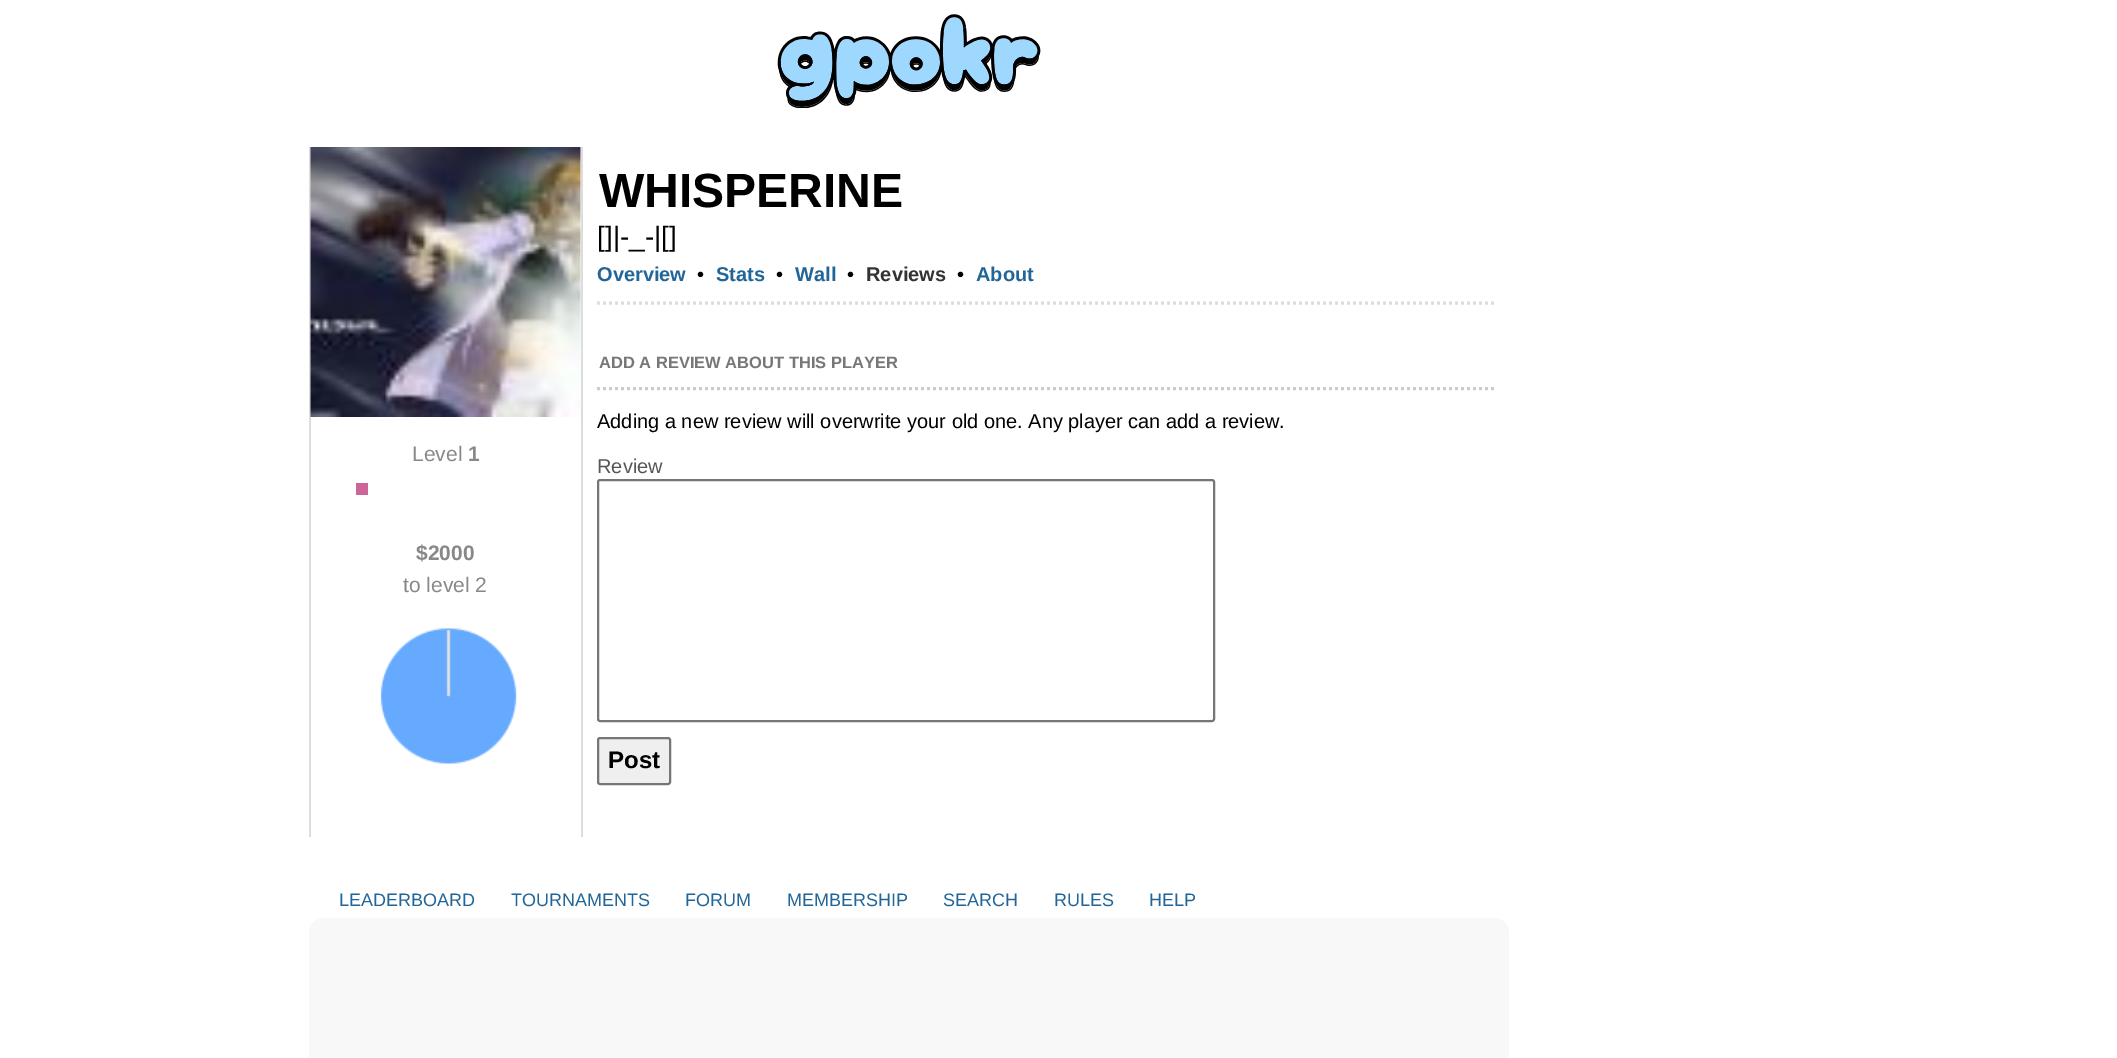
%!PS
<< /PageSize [2117 1058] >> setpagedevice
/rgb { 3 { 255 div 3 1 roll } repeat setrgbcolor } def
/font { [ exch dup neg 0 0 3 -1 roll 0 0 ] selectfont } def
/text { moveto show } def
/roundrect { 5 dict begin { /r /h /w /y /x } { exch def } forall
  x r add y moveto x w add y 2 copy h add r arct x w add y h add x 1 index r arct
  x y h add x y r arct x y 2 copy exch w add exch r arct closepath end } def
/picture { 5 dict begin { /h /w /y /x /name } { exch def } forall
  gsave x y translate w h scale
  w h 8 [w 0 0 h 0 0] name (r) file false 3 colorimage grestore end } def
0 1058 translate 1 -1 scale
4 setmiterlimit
255 255 255 rgb
0 0 2117 1058 rectfill
(img_01.rgb) 777 14 264 94 picture
221 221 221 rgb
581 147 2 690 rectfill
309 147 2 690 rectfill
(img_02.rgb) 310 147 271 270 picture
204 102 153 rgb
356 483 12 12 rectfill
(img_03.rgb) 380 628 137 136 picture
221 221 221 rgb
3 setlinewidth
[3 3] 0 setdash
597 303 moveto 897 0 rlineto stroke
204 204 204 rgb
597 388.5 moveto 897 0 rlineto stroke
118 118 118 rgb
2 setlinewidth
[] 0 setdash
598 480 616 241 2 roundrect stroke
239 239 239 rgb
598 738 72 46 2 roundrect gsave fill grestore
118 118 118 rgb
stroke
248 248 248 rgb
309 918 1200 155 15 roundrect fill
/LiberationSans-Regular 21 font
136 136 136 rgb
(Level) 412 461 text
/LiberationSans-Bold 21 font
(1) 468 461 text
($2000) 416 560 text
/LiberationSans-Regular 21 font
(to level 2) 403 592 text
/LiberationSans-Bold 48 font
0 0 0 rgb
(WHISPERINE) 599 207 text
/LiberationSans-Regular 28 font
([]|-_-|[]) 597 246 text
/LiberationSans-Bold 20 font
34 102 153 rgb
(Overview) 597 281 text
/LiberationSans-Regular 20 font
0 0 0 rgb
(•) 697 281 text
/LiberationSans-Bold 20 font
34 102 153 rgb
(Stats) 716 281 text
/LiberationSans-Regular 20 font
0 0 0 rgb
(•) 776 281 text
/LiberationSans-Bold 20 font
34 102 153 rgb
(Wall) 795 281 text
/LiberationSans-Regular 20 font
0 0 0 rgb
(•) 847 281 text
/LiberationSans-Bold 20 font
51 51 51 rgb
(Reviews) 866 281 text
/LiberationSans-Regular 20 font
0 0 0 rgb
(•) 957 281 text
/LiberationSans-Bold 20 font
34 102 153 rgb
(About) 976 281 text
/LiberationSans-Bold 16.5 font
119 119 119 rgb
(ADD A REVIEW ABOUT THIS PLAYER) 599 368 text
/LiberationSans-Regular 20 font
0 0 0 rgb
(Adding a new review will overwrite your old one. Any player can add a review.) 597 428 text
85 85 85 rgb
(Review) 597 473 text
/LiberationSans-Bold 24 font
0 0 0 rgb
(Post) 608 768 text
/LiberationSans-Regular 18 font
34 102 153 rgb
(LEADERBOARD) 339 906 text
(TOURNAMENTS) 511 906 text
(FORUM) 685 906 text
(MEMBERSHIP) 787 906 text
(SEARCH) 943 906 text
(RULES) 1054 906 text
(HELP) 1149 906 text
showpage
